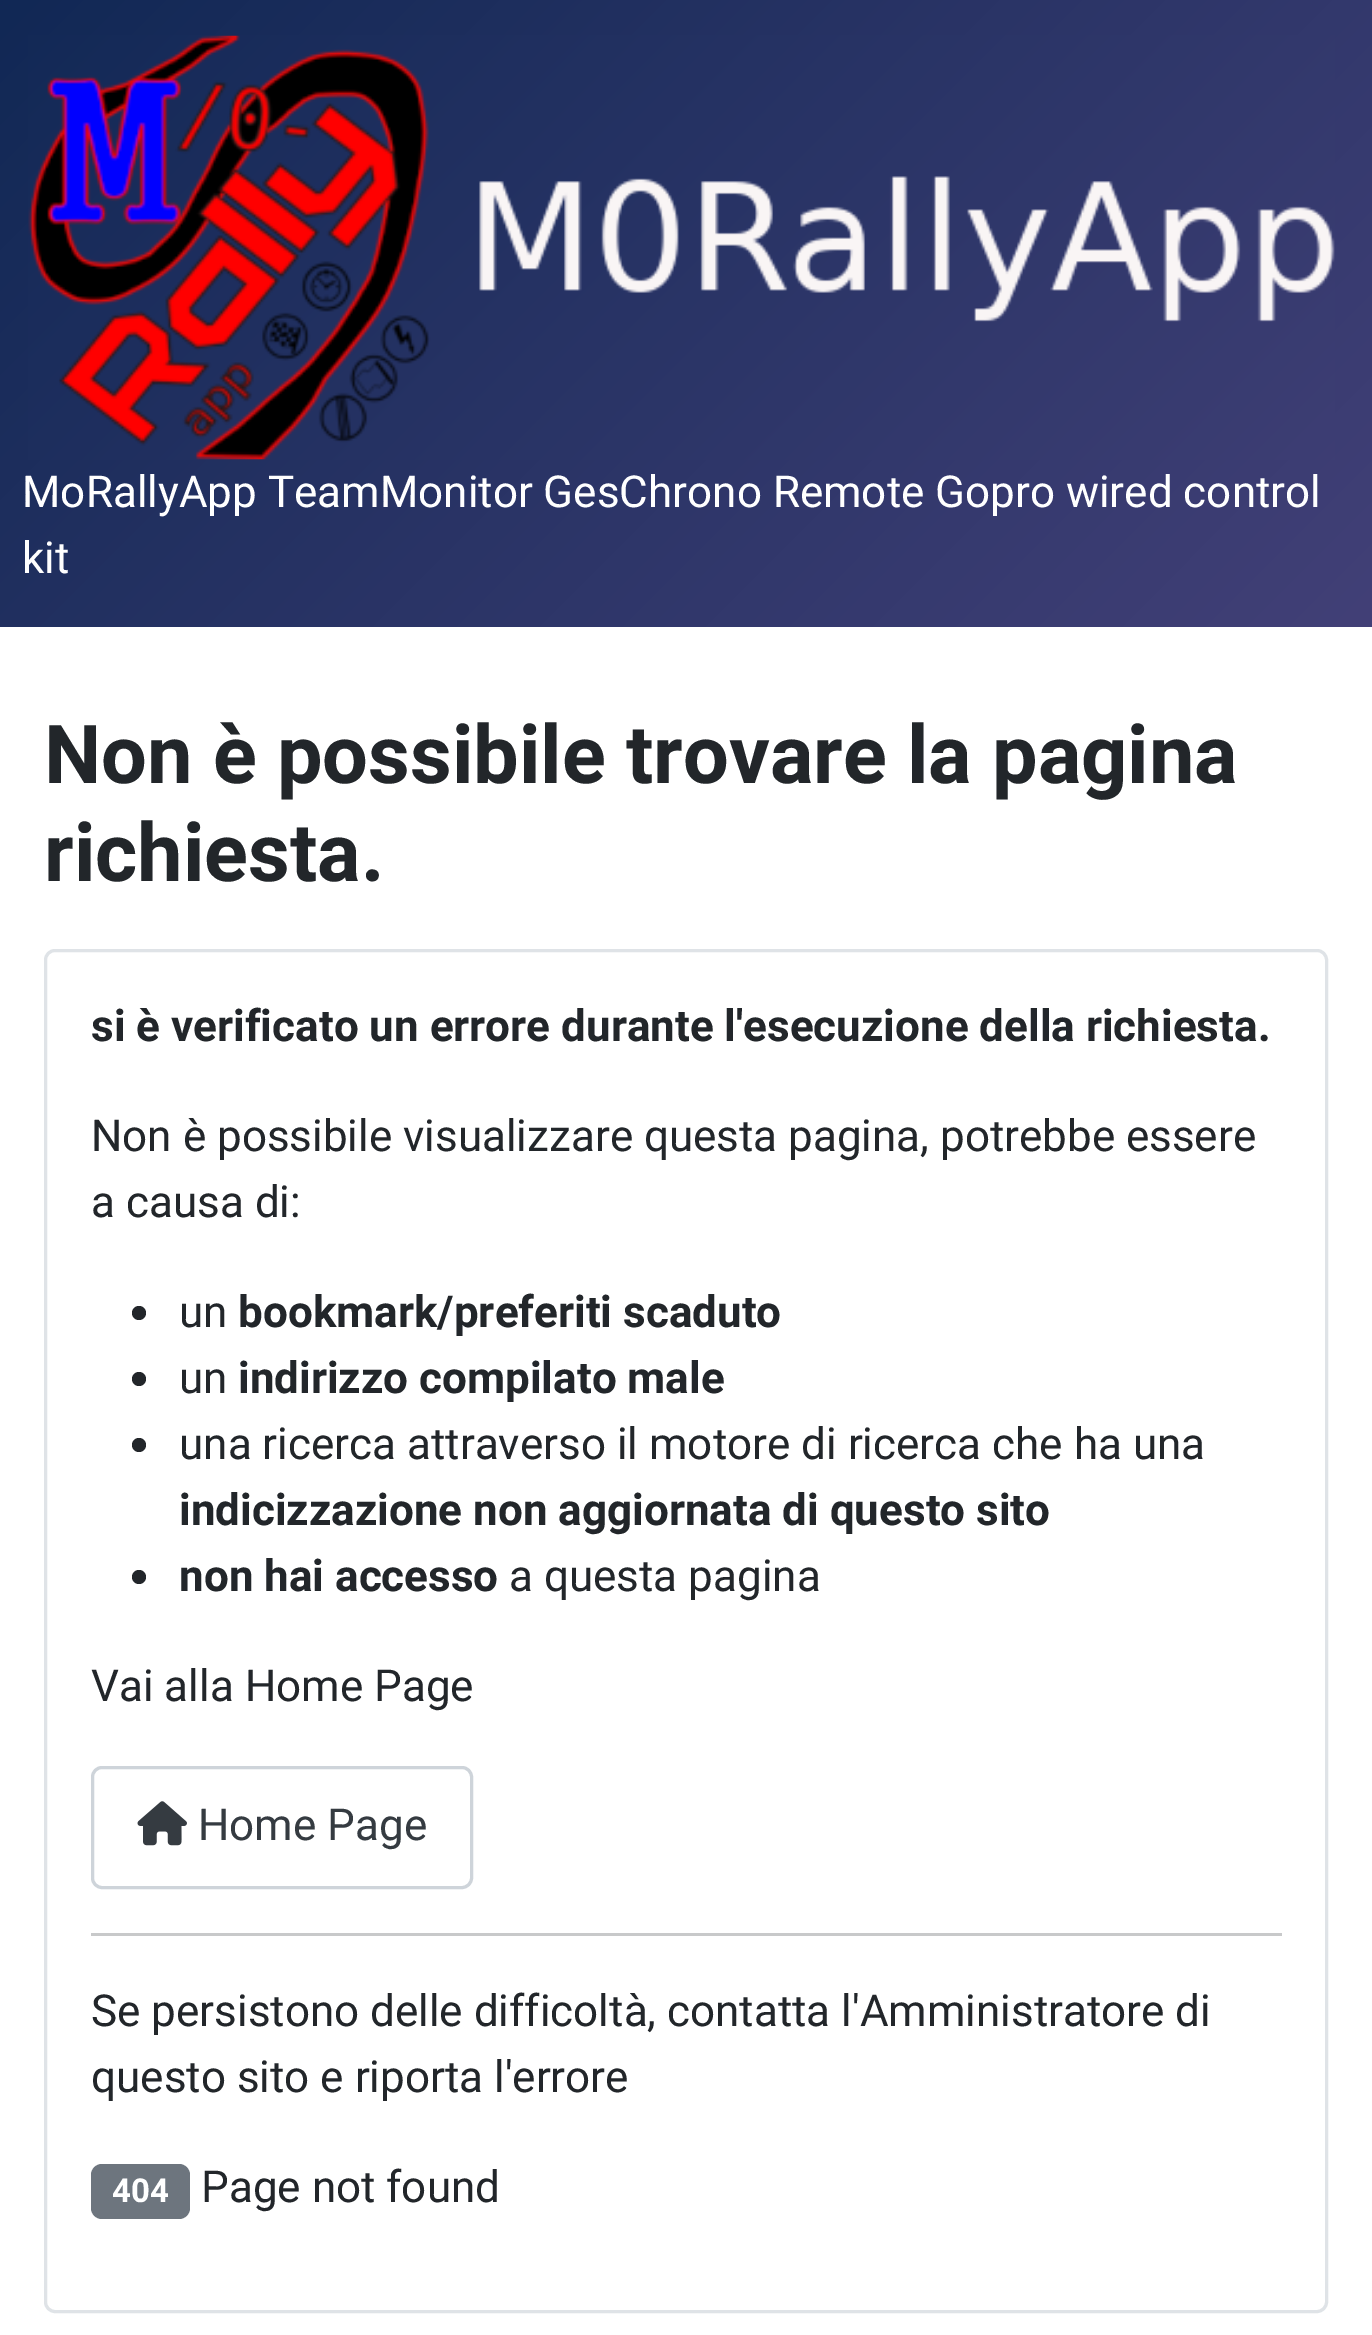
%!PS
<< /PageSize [1372 2335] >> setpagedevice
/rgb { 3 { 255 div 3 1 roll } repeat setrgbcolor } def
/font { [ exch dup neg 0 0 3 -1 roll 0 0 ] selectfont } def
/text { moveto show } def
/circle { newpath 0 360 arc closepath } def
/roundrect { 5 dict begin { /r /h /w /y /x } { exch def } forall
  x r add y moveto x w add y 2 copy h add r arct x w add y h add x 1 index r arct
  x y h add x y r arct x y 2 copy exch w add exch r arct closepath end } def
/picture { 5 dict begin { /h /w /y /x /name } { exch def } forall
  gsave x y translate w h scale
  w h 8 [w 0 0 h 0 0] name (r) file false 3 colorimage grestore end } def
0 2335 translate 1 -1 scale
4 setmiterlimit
255 255 255 rgb
0 0 1372 2335 rectfill
gsave 0 0 moveto 1372 0 rlineto 0 627 rlineto -1372 0 rlineto closepath clip newpath
<< /ShadingType 2 /ColorSpace /DeviceRGB /Coords [186 -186 1186 813] /Extend [true true] /Function << /FunctionType 2 /Domain [0 1] /C0 [0.067 0.157 0.333] /C1 [0.259 0.251 0.467] /N 1 >> >> shfill grestore
(img_01.rgb) 28 35 1307 425 picture
223 227 231 rgb
3 setlinewidth
45.5 950.5 1281 1361 9.5 roundrect stroke
34 38 42 rgb
139 1313 7 circle fill
139 1379 7 circle fill
139 1445 7 circle fill
139 1577 7 circle fill
206 212 218 rgb
92.5 1767.5 379 120 9.5 roundrect stroke
(img_02.rgb) 137 1801 50 45 picture
200 201 202 rgb
91 1933 1191 3 rectfill
109 117 126 rgb
91 2164 99 55 11 roundrect fill
/Roboto-Regular 44 font
255 255 255 rgb
(MoRallyApp TeamMonitor GesChrono Remote Gopro wired control) 22 507 text
(kit) 22 573 text
/Roboto-Bold 81.1 font
34 38 42 rgb
(Non è possibile trovare la pagina) 44 783 text
(richiesta.) 44 881 text
/Roboto-Bold 44 font
(si è verificato un errore durante l'esecuzione della richiesta.) 91 1041 text
/Roboto-Regular 44 font
(Non è possibile visualizzare questa pagina, potrebbe essere) 91 1151 text
(a causa di:) 91 1217 text
(un) 179 1327 text
/Roboto-Bold 44 font
(bookmark/preferiti scaduto) 238 1327 text
/Roboto-Regular 44 font
(un) 179 1393 text
/Roboto-Bold 44 font
(indirizzo compilato male) 238 1393 text
/Roboto-Regular 44 font
(una ricerca attraverso il motore di ricerca che ha una) 179 1459 text
/Roboto-Bold 44 font
(indicizzazione non aggiornata di questo sito) 179 1525 text
(non hai accesso) 179 1591 text
/Roboto-Regular 44 font
(a questa pagina) 509 1591 text
(Vai alla Home Page) 91 1701 text
53 59 65 rgb
(Home Page) 198 1840 text
34 38 42 rgb
(Se persistono delle difficoltà, contatta l'Amministratore di) 91 2026 text
(questo sito e riporta l'errore) 91 2092 text
/Roboto-Bold 33 font
255 255 255 rgb
(404) 112 2202 text
/Roboto-Regular 44 font
34 38 42 rgb
(Page not found) 201 2202 text
showpage
